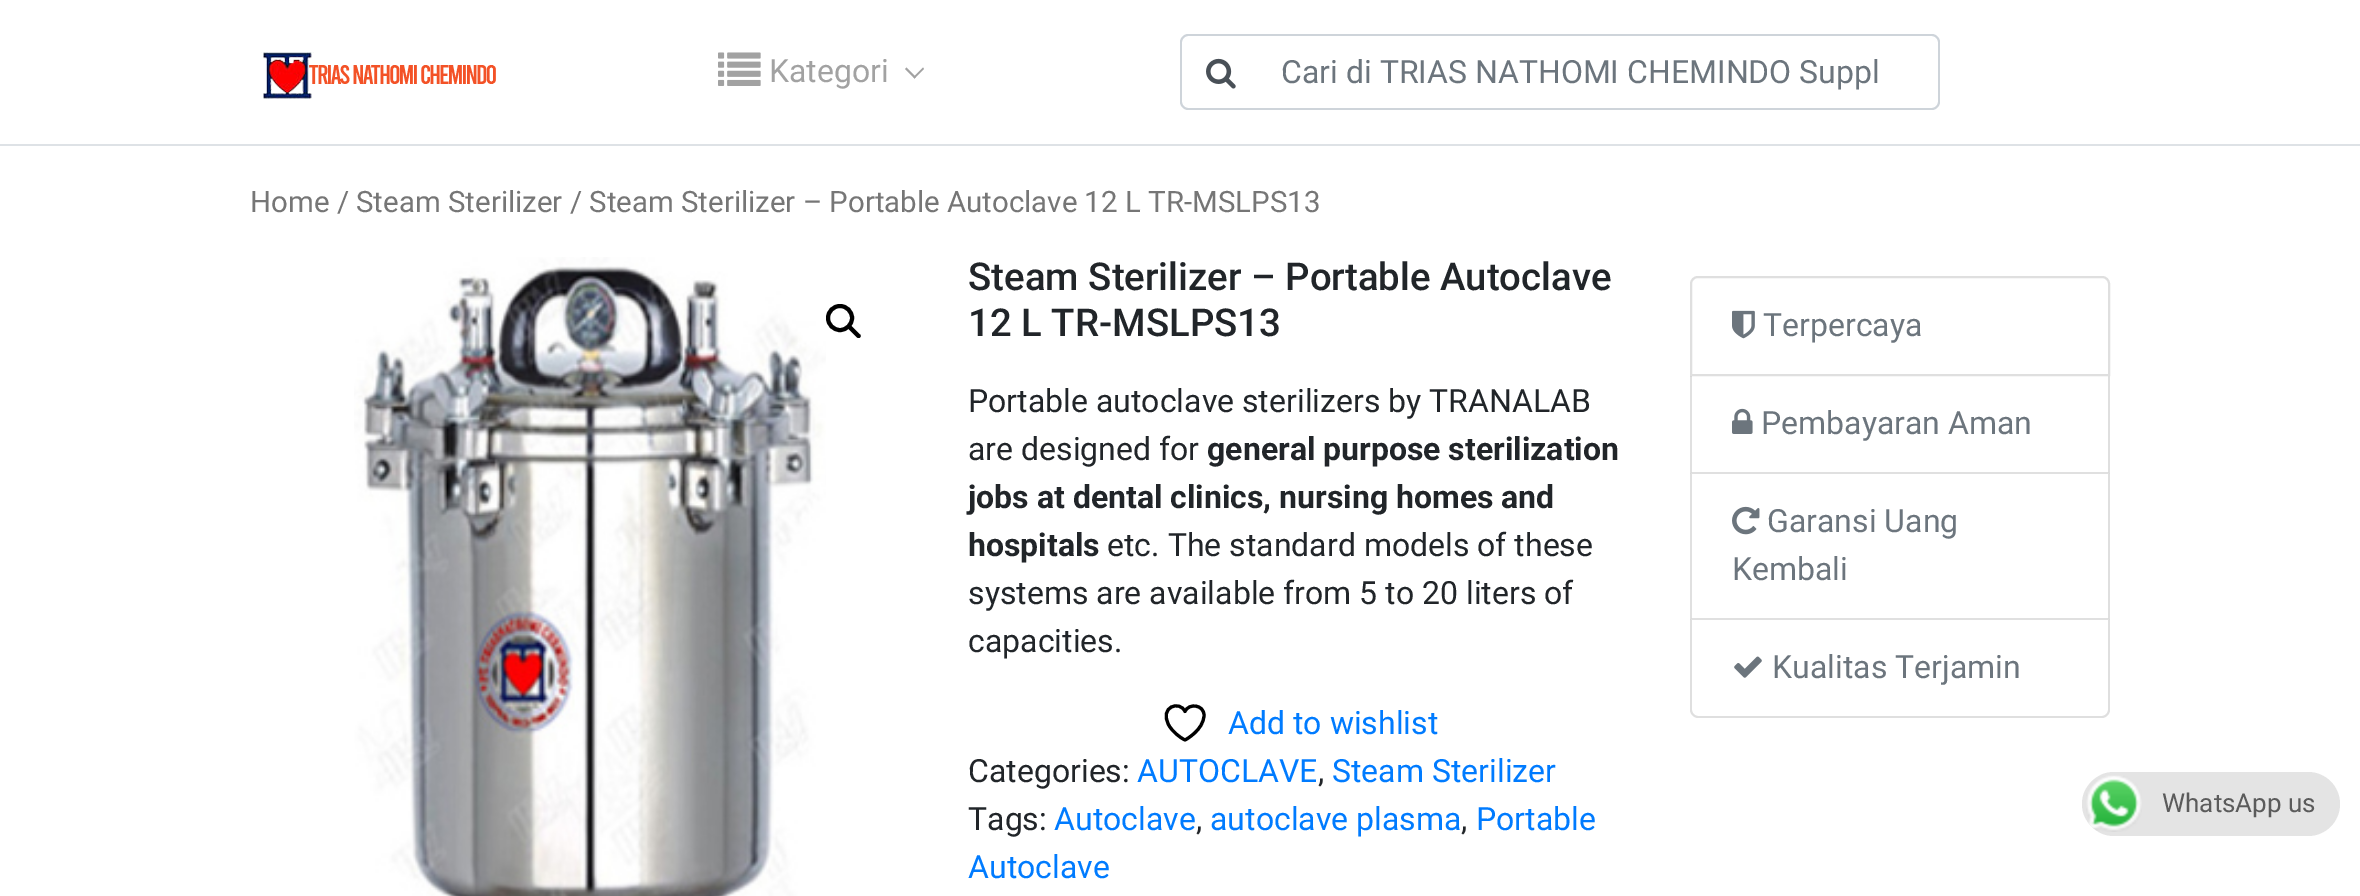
%!PS
<< /PageSize [2360 896] /PageUsesTransparency true >> setpagedevice
/rgb { 3 { 255 div 3 1 roll } repeat setrgbcolor } def
/font { [ exch dup neg 0 0 3 -1 roll 0 0 ] selectfont } def
/text { moveto show } def
/alpha { dup .setfillconstantalpha .setstrokeconstantalpha } def
/circle { newpath 0 360 arc closepath } def
/roundrect { 5 dict begin { /r /h /w /y /x } { exch def } forall
  x r add y moveto x w add y 2 copy h add r arct x w add y h add x 1 index r arct
  x y h add x y r arct x y 2 copy exch w add exch r arct closepath end } def
/picture { 5 dict begin { /h /w /y /x /name } { exch def } forall
  gsave x y translate w h scale
  w h 8 [w 0 0 h 0 0] name (r) file false 3 colorimage grestore end } def
0 .pushpdf14devicefilter
0 896 translate 1 -1 scale
4 setmiterlimit
255 255 255 rgb
0 0 2360 896 rectfill
222 226 230 rgb
0 144 2360 2 rectfill
(img_01.rgb) 261 52 235 47 picture
(img_02.rgb) 718 52 43 34 picture
162 162 162 rgb
923 67.5 moveto 1 1.5 rlineto -9.5 9.5 rlineto -1 -1.5 rlineto closepath fill
906.5 67.5 moveto 9.5 9.5 rlineto -1.5 1.5 rlineto -9.5 -9.5 rlineto closepath fill
206 212 218 rgb
1188 34 moveto 72 0 rlineto 0 76 rlineto -72 0 rlineto -4 0 -8 -4 -8 -8 rcurveto 0 -60 rlineto 0 -4 4 -8 8 -8 rcurveto closepath 1188 36 moveto 72 0 rlineto 0 72 rlineto -72 0 rlineto -3 0 -6 -3 -6 -6 rcurveto 0 -60 rlineto 0 -3 3 -6 6 -6 rcurveto closepath eofill
(img_03.rgb) 1206 58 30 31 picture
1258 34 moveto 674 0 rlineto 4 0 8 4 8 8 rcurveto 0 60 rlineto 0 4 -4 8 -8 8 rcurveto -674 0 rlineto closepath 1258 36 moveto 674 0 rlineto 3 0 6 3 6 6 rcurveto 0 60 rlineto 0 3 -3 6 -6 6 rcurveto -674 0 rlineto closepath eofill
(img_04.rgb) 354 257 472 639 picture
0 0 0 rgb
4 setlinewidth
840 318 12 circle stroke
848.5 326 moveto 1 -1 2.5 -1 3 0 rcurveto 8.5 8.5 rlineto 1 0.5 1 2 0 3 rcurveto -0.5 0.5 -2 0.5 -3 0 rcurveto -8.5 -8.5 rlineto -0.5 -1 -0.5 -2.5 0 -3 rcurveto closepath fill
3.1 setlinewidth
1 setlinecap
1 setlinejoin
1204 715 moveto 0 -10 -15 -12.5 -19 -3.5 rcurveto -5 -11.5 -26.5 -5 -16 14 rcurveto 3.5 6 10 11.5 16 14.5 rcurveto 0 0 19 -10 19 -25 rcurveto closepath stroke
223 223 223 rgb
2 setlinewidth
0 setlinecap
0 setlinejoin
1698 277 moveto 404 0 rlineto 4 0 7 3 7 7 rcurveto 0 91 rlineto -418 0 rlineto 0 -91 rlineto 0 -4 3 -7 7 -7 rcurveto closepath stroke
(img_05.rgb) 1732 310 23 29 picture
2110 376 moveto 0 98 rlineto -2 -2 rlineto 0 -96 rlineto closepath fill
0.12 alpha
0 0 0 rgb
2110 474 moveto -420 0 rlineto 2 -2 rlineto 416 0 rlineto closepath fill
1690 474 moveto 0 -98 rlineto 2 0 rlineto 0 96 rlineto closepath fill
1 alpha
(img_06.rgb) 1732 408 21 26 picture
223 223 223 rgb
2110 474 moveto 0 146 rlineto -2 -2 rlineto 0 -144 rlineto closepath fill
0.12 alpha
0 0 0 rgb
2110 620 moveto -420 0 rlineto 2 -2 rlineto 416 0 rlineto closepath fill
1690 620 moveto 0 -146 rlineto 2 0 rlineto 0 144 rlineto closepath fill
1 alpha
(img_07.rgb) 1732 506 28 29 picture
223 223 223 rgb
1690 620 moveto 420 0 rlineto 0 90 rlineto 0 4 -4 8 -8 8 rcurveto -404 0 rlineto -4 0 -8 -4 -8 -8 rcurveto closepath 1692 620 moveto 416 0 rlineto 0 90 rlineto 0 3 -3 6 -6 6 rcurveto -404 0 rlineto -3 0 -6 -3 -6 -6 rcurveto closepath eofill
(img_08.rgb) 1734 656 28 22 picture
228 228 228 rgb
2082 772 258 64 32 roundrect fill
(img_09.rgb) 2086 775 56 57 picture
/Roboto-Regular 32 font
162 162 162 rgb
(Kategori) 769 82 text
108 117 125 rgb
(Cari di TRIAS NATHOMI CHEMINDO Suppl) 1281 83 text
/Roboto-Regular 29.45 font
118 118 118 rgb
(Home / Steam Sterilizer / Steam Sterilizer – Portable Autoclave 12 L TR-MSLPS13) 250 212 text
/Roboto-Medium 38.4 font
33 37 41 rgb
(Steam Sterilizer – Portable Autoclave) 968 290 text
(12 L TR-MSLPS13) 968 336 text
/Roboto-Regular 32 font
(Portable autoclave sterilizers by TRANALAB) 968 412 text
(are designed for) 968 460 text
/Roboto-Bold 32 font
(general purpose sterilization) 1207 460 text
(jobs at dental clinics, nursing homes and) 968 508 text
(hospitals) 968 556 text
/Roboto-Regular 32 font
(etc. The standard models of these) 1107 556 text
(systems are available from 5 to 20 liters of) 968 604 text
(capacities.) 968 652 text
0 123 255 rgb
(Add to wishlist) 1228 734 text
33 37 41 rgb
(Categories:) 968 782 text
0 123 255 rgb
(AUTOCLAVE) 1137 782 text
33 37 41 rgb
(,) 1318 782 text
0 123 255 rgb
(Steam Sterilizer) 1332 782 text
33 37 41 rgb
(Tags:) 968 830 text
0 123 255 rgb
(Autoclave) 1054 830 text
33 37 41 rgb
(,) 1196 830 text
0 123 255 rgb
(autoclave plasma) 1210 830 text
33 37 41 rgb
(,) 1461 830 text
0 123 255 rgb
(Portable) 1476 830 text
(Autoclave) 968 878 text
108 117 125 rgb
(Terpercaya) 1763 336 text
(Pembayaran Aman) 1761 434 text
(Garansi Uang) 1767 532 text
(Kembali) 1732 580 text
(Kualitas Terjamin) 1772 678 text
/Roboto-Regular 26 font
91 91 91 rgb
(WhatsApp us) 2162 812 text
.poppdf14devicefilter showpage
